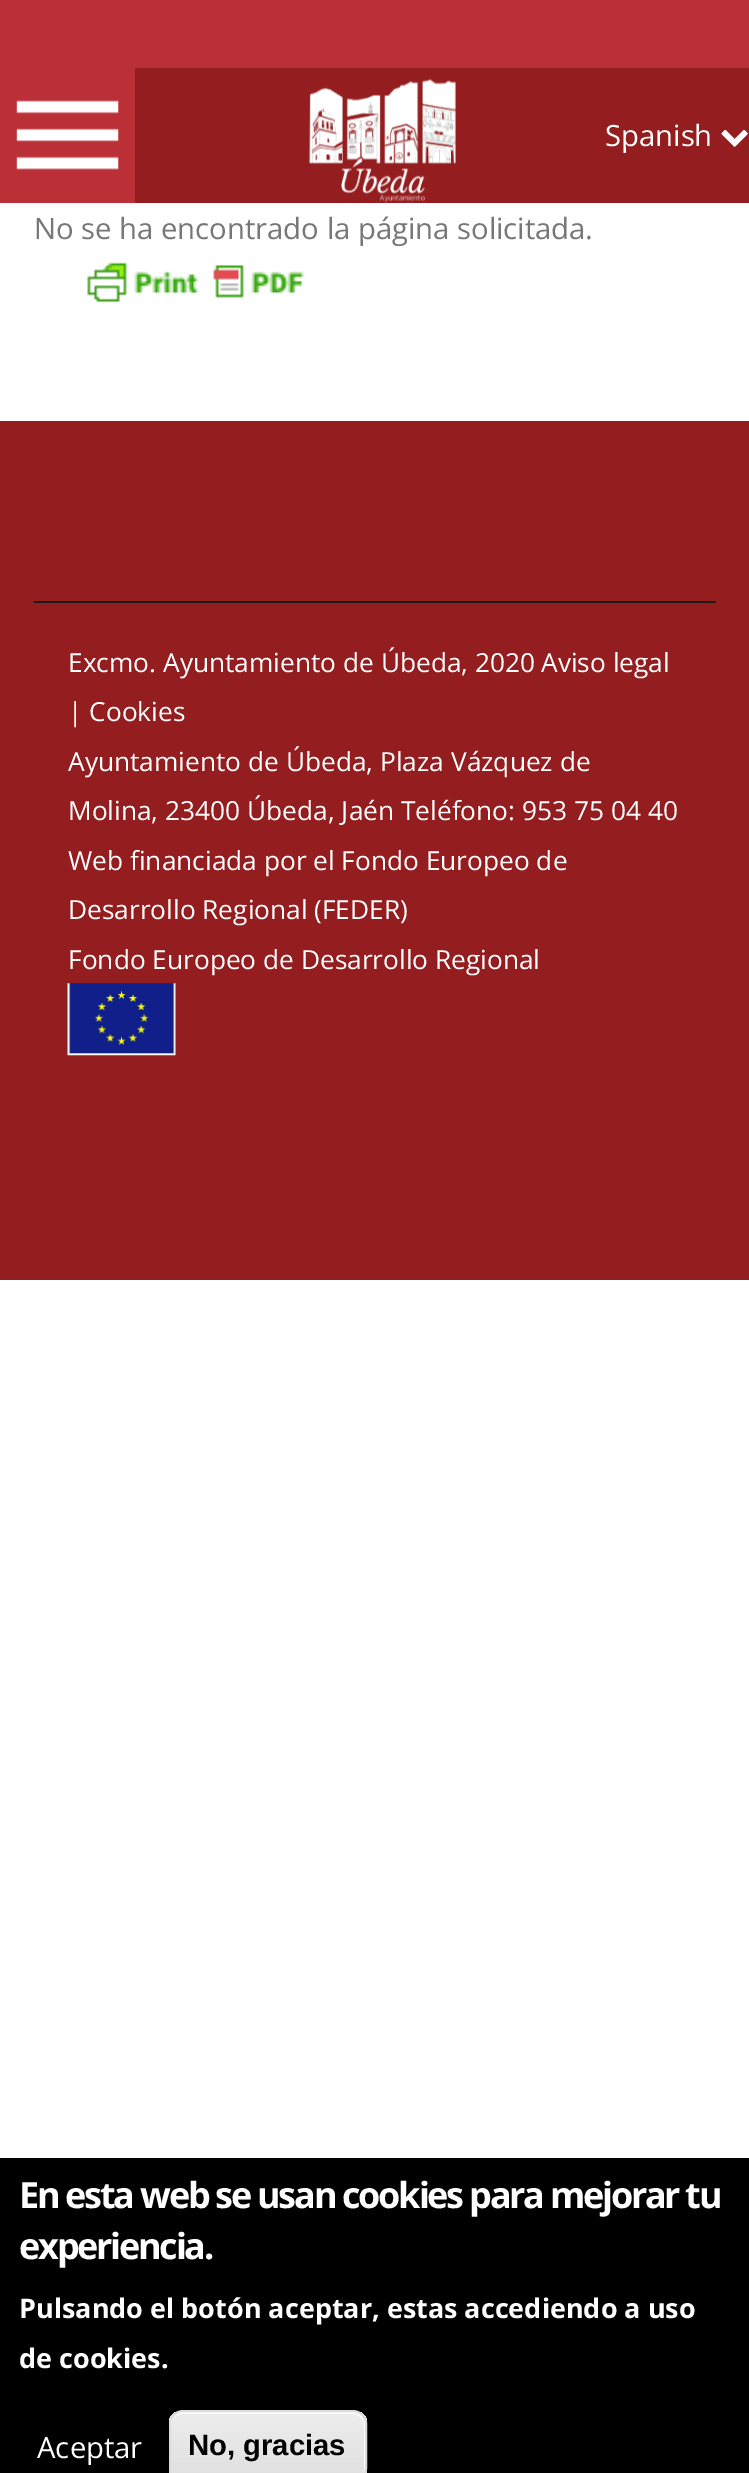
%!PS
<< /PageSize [749 2473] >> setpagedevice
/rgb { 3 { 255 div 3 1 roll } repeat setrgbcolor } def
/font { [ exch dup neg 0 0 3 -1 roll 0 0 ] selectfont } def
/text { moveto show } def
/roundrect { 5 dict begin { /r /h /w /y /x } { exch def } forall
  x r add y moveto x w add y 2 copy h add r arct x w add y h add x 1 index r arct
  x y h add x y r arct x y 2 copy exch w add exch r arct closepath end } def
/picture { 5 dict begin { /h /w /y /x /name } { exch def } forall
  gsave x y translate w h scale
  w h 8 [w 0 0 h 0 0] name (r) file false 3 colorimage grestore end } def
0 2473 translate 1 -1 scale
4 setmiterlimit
255 255 255 rgb
0 0 749 2473 rectfill
187 48 55 rgb
0 0 749 68 rectfill
148 29 31 rgb
135 68 614 135 rectfill
187 48 55 rgb
0 68 135 135 rectfill
(img_01.rgb) 16 100 103 70 picture
(img_02.rgb) 309 78 147 125 picture
(img_03.rgb) 721 129 27 18 picture
(img_04.rgb) 87 262 218 41 picture
148 29 31 rgb
0 421 749 859 rectfill
27 27 27 rgb
34 601 682 2 rectfill
(img_05.rgb) 67 983 109 73 picture
0 0 0 rgb
0 2158 749 315 rectfill
gsave
169 2410 198 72 14 roundrect clip newpath
gsave 169 2412 moveto 198 0 rlineto 0 61 rlineto -198 0 rlineto closepath clip newpath
<< /ShadingType 2 /ColorSpace /DeviceRGB /Coords [268 2412 268 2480] /Extend [true true] /Function << /FunctionType 3 /Domain [0 1] /Functions [<< /FunctionType 2 /Domain [0 1] /C0 [0.929 0.929 0.929] /C1 [0.929 0.929 0.929] /N 1 >> << /FunctionType 2 /Domain [0 1] /C0 [0.929 0.929 0.929] /C1 [0.875 0.875 0.875] /N 1 >>] /Bounds [0.05] /Encode [0 1 0 1] >> >> shfill grestore
grestore
255 255 255 rgb
182 2414 moveto 171 0 rlineto 6 0 11 5 11 12 rcurveto 0 44 rlineto 0 2 0 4 -1 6 rcurveto 1 -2 2 -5 2 -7 rcurveto 0 -46 rlineto 0 -6 -5 -11 -11 -11 rcurveto -172 0 rlineto -6 0 -11 5 -11 11 rcurveto 0 3 rlineto 0 -7 5 -12 11 -12 rcurveto closepath fill
220 220 220 rgb
2 setlinewidth
170 2411 196 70 13 roundrect stroke
/OpenSans-Regular 29.25 font
255 255 255 rgb
(Spanish) 605 146 text
119 119 119 rgb
(No se ha encontrado la página solicitada.) 34 239 text
/OpenSans-Regular 26.3 font
255 255 255 rgb
(Excmo. Ayuntamiento de Úbeda, 2020) 68 672 text
(Aviso legal) 541 672 text
(| Cookies) 68 721 text
(Ayuntamiento de Úbeda, Plaza Vázquez de) 68 771 text
(Molina, 23400 Úbeda, Jaén Teléfono: 953 75 04 40) 68 820 text
(Web financiada por el Fondo Europeo de) 68 870 text
(Desarrollo Regional \(FEDER\)) 68 919 text
(Fondo Europeo de Desarrollo Regional) 68 969 text
/OpenSans-Bold 36 font
19 2208 moveto -2.25 0 (En esta web se usan cookies para mejorar tu) ashow
19 2259 moveto -2.25 0 (experiencia.) ashow
/OpenSans-Bold 27 font
(Pulsando el botón aceptar, estas accediendo a uso) 19 2318 text
(de cookies.) 19 2368 text
/OpenSans-Regular 29.25 font
(Aceptar) 37 2458 text
/LiberationSans-Bold 29.25 font
0 0 0 rgb
(No, gracias) 188 2455 text
showpage
